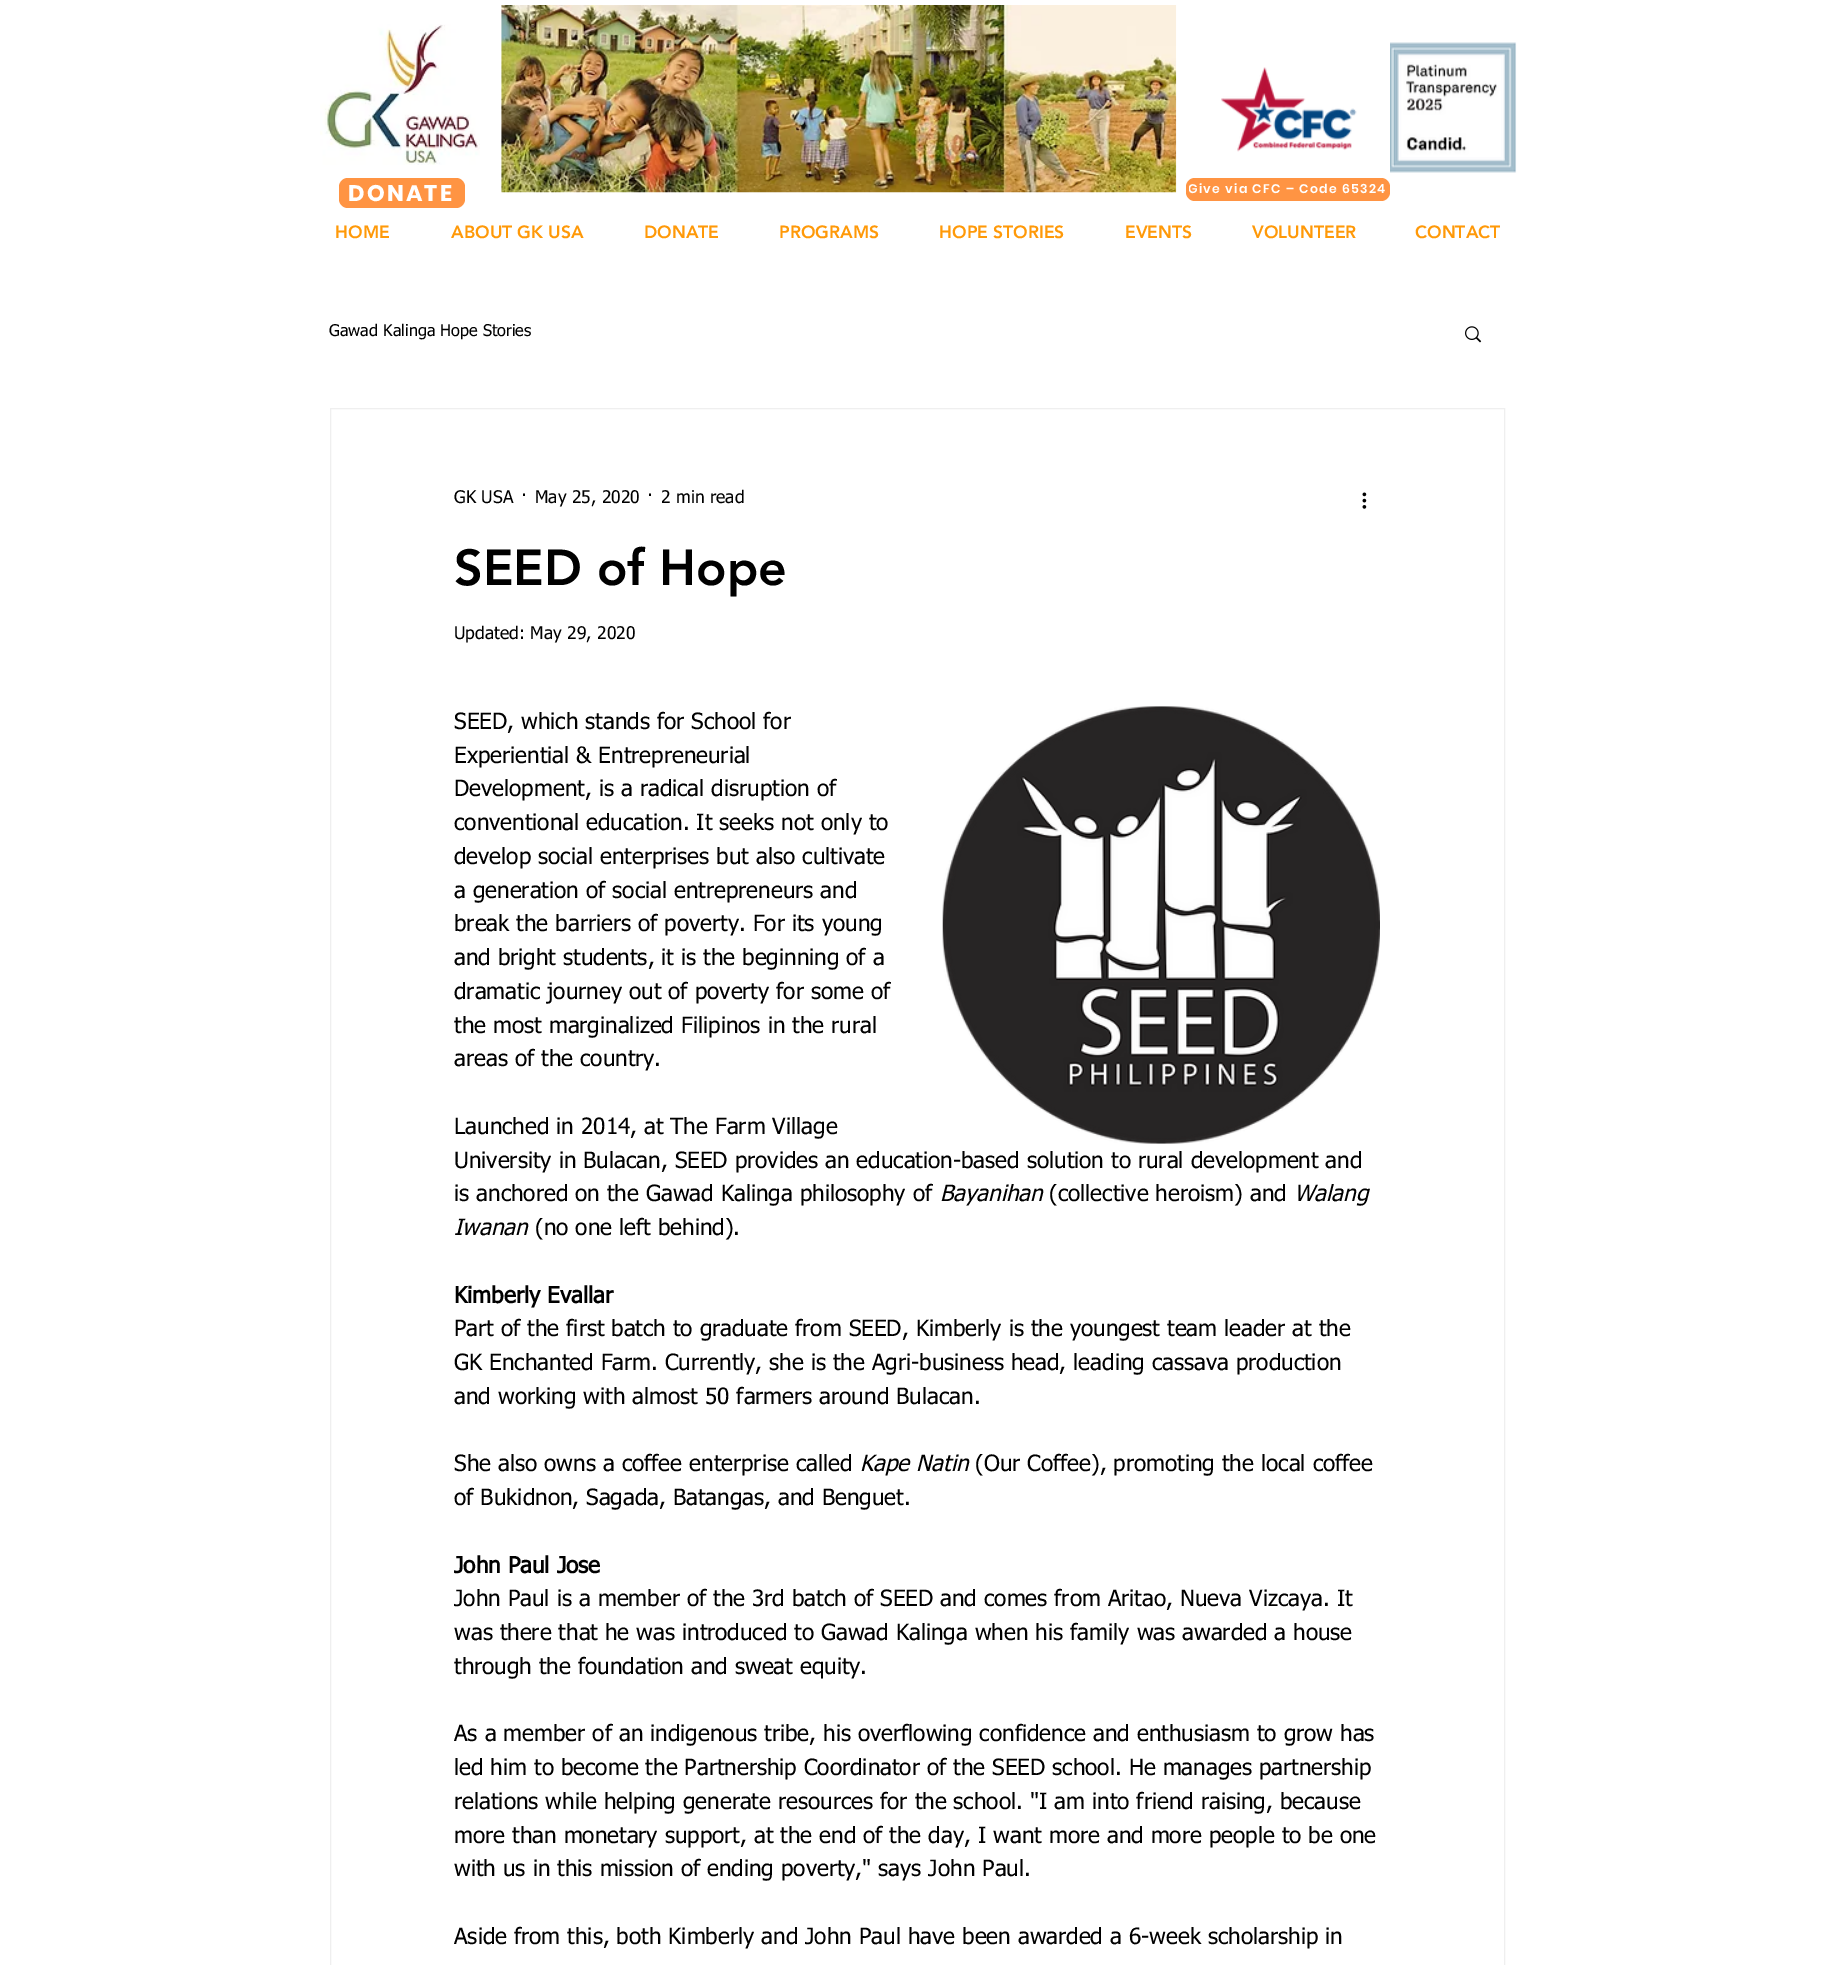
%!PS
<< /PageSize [1833 1965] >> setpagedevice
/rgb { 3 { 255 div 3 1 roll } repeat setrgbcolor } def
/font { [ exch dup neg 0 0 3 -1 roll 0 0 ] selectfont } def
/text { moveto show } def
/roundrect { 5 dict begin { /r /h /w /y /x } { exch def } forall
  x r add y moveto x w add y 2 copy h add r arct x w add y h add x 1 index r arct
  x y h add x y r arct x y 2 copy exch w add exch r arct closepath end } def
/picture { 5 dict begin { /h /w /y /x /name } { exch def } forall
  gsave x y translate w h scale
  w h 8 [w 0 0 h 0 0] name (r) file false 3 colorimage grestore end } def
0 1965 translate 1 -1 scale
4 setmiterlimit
255 255 255 rgb
0 0 1833 1965 rectfill
(img_01.rgb) 320 24 160 141 picture
(img_02.rgb) 501 5 676 188 picture
(img_03.rgb) 1221 67 136 85 picture
(img_04.rgb) 1390 42 127 131 picture
255 148 67 rgb
339 178 126 30 9 roundrect fill
1186 178 204 23 9 roundrect fill
(img_05.rgb) 1465 326 17 17 picture
239 239 239 rgb
330.5 408.5 1174 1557 rectstroke
(img_06.rgb) 1362 492 5 17 picture
(img_07.rgb) 942 706 438 438 picture
/Poppins-Bold 22.5 font
255 255 255 rgb
348 201 moveto 2.25 0 (DONATE) ashow
gsave
1189 180 197 20 rectclip
/Poppins-SemiBold 12.5 font
1188 193 moveto 1.25 0 (Give via CFC – Code 65324) ashow
grestore
/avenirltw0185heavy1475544-Black 17.5 font
255 153 8 rgb
(HOME) 335 238 text
(ABOUT GK USA) 451 238 text
(DONATE) 644 238 text
(PROGRAMS) 779 238 text
(HOPE STORIES) 939 238 text
(EVENTS) 1125 238 text
(VOLUNTEER) 1252 238 text
(CONTACT) 1415 238 text
/tahoma-Regular 16.25 font
0 0 0 rgb
(Gawad Kalinga Hope Stories) 329 336 text
/tahoma-Regular 17.5 font
(GK USA) 454 503 text
(·) 521 503 text
(May 25, 2020) 535 503 text
(·) 647 503 text
(2 min read) 661 503 text
/avenirltw0185heavy1475544-Black 50 font
(SEED of Hope) 454 585 text
/tahoma-Regular 17.5 font
(Updated: May 29, 2020) 454 639 text
/tahoma-Regular 22.5 font
(SEED, which stands for School for) 454 729 text
(Experiential & Entrepreneurial) 454 763 text
(Development, is a radical disruption of) 454 796 text
(conventional education. It seeks not only to) 454 830 text
(develop social enterprises but also cultivate) 454 864 text
(a generation of social entrepreneurs and) 454 898 text
(break the barriers of poverty. For its young) 454 931 text
(and bright students, it is the beginning of a) 454 965 text
(dramatic journey out of poverty for some of) 454 999 text
(the most marginalized Filipinos in the rural) 454 1033 text
(areas of the country.) 454 1066 text
(Launched in 2014, at The Farm Village) 454 1134 text
(University in Bulacan, SEED provides an education-based solution to rural development and) 454 1168 text
(is anchored on the Gawad Kalinga philosophy of) 454 1201 text
/tahoma-Italic 22.5 font
(Bayanihan) 940 1201 text
/tahoma-Regular 22.5 font
(\(collective heroism\) and) 1049 1201 text
/tahoma-Italic 22.5 font
(Walang) 1294 1201 text
(Iwanan) 454 1235 text
/tahoma-Regular 22.5 font
(\(no one left behind\).) 535 1235 text
/tahoma-Bold 22.5 font
(Kimberly Evallar) 454 1303 text
/tahoma-Regular 22.5 font
(Part of the first batch to graduate from SEED, Kimberly is the youngest team leader at the) 454 1336 text
(GK Enchanted Farm. Currently, she is the Agri-business head, leading cassava production) 454 1370 text
(and working with almost 50 farmers around Bulacan.) 454 1404 text
(She also owns a coffee enterprise called) 454 1471 text
/tahoma-Italic 22.5 font
(Kape Natin) 860 1471 text
/tahoma-Regular 22.5 font
(\(Our Coffee\), promoting the local coffee) 975 1471 text
(of Bukidnon, Sagada, Batangas, and Benguet.) 454 1505 text
/tahoma-Bold 22.5 font
(John Paul Jose) 454 1573 text
/tahoma-Regular 22.5 font
(John Paul is a member of the 3rd batch of SEED and comes from Aritao, Nueva Vizcaya. It) 454 1606 text
(was there that he was introduced to Gawad Kalinga when his family was awarded a house) 454 1640 text
(through the foundation and sweat equity.) 454 1674 text
(As a member of an indigenous tribe, his overflowing confidence and enthusiasm to grow has) 454 1741 text
(led him to become the Partnership Coordinator of the SEED school. He manages partnership) 454 1775 text
(relations while helping generate resources for the school. "I am into friend raising, because) 454 1809 text
(more than monetary support, at the end of the day, I want more and more people to be one) 454 1843 text
(with us in this mission of ending poverty," says John Paul.) 454 1876 text
(Aside from this, both Kimberly and John Paul have been awarded a 6-week scholarship in) 454 1944 text
showpage
